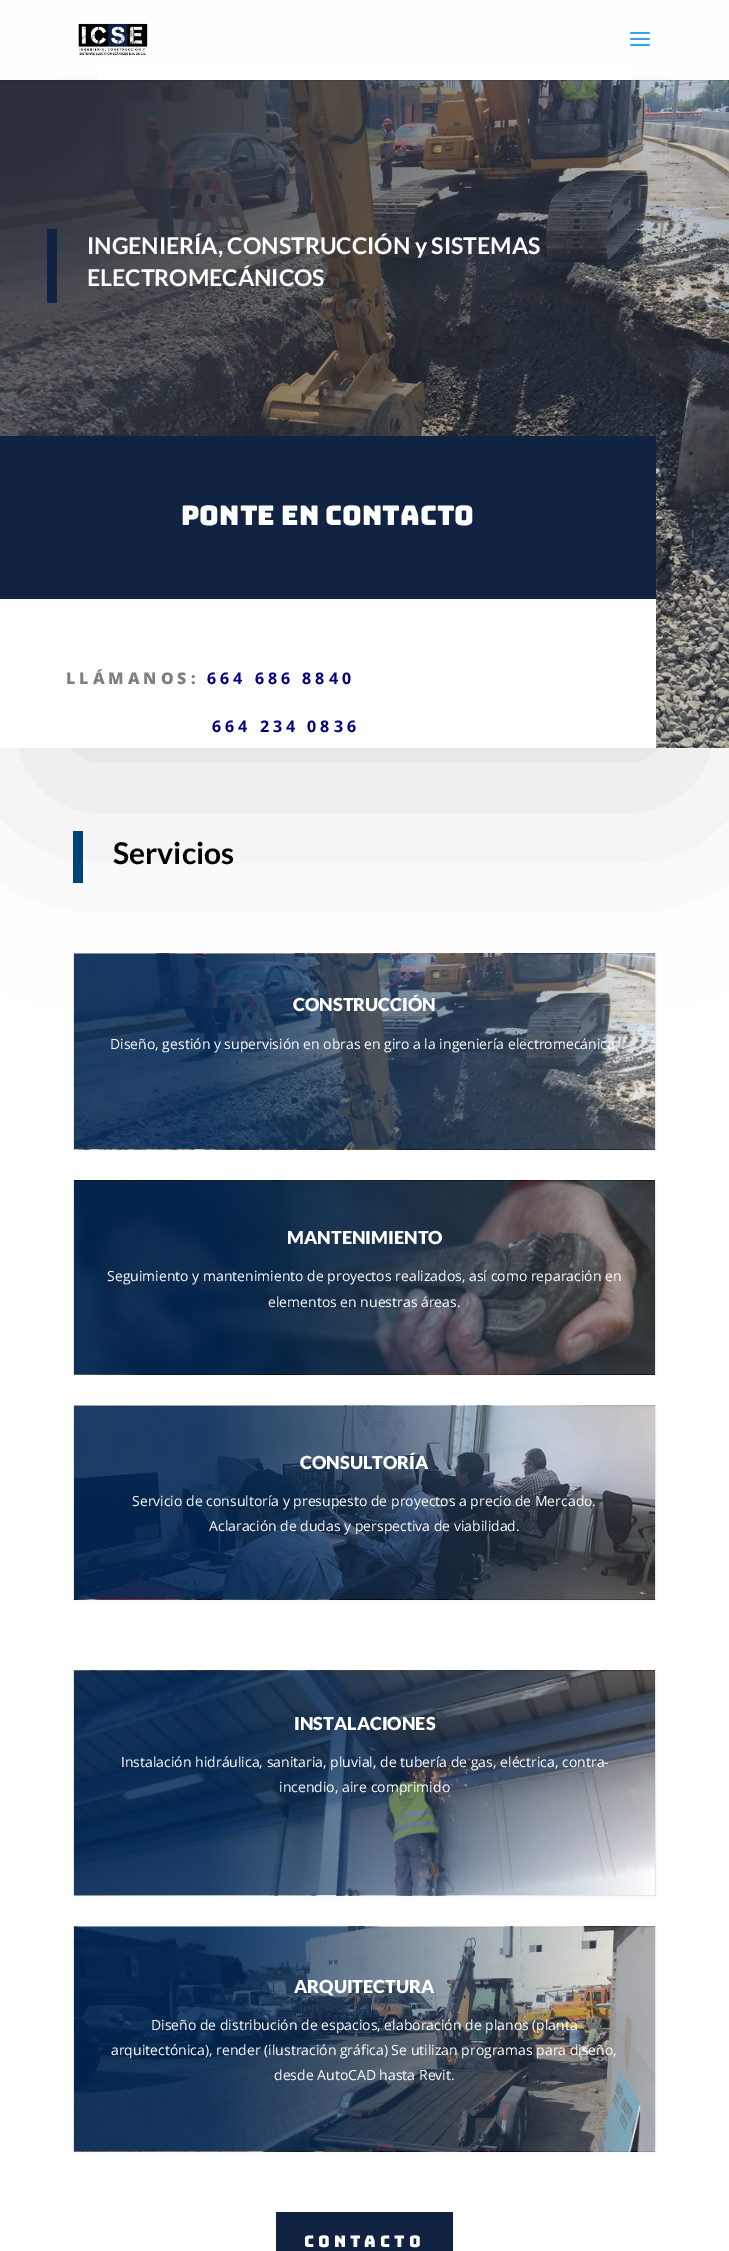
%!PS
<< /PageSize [729 2251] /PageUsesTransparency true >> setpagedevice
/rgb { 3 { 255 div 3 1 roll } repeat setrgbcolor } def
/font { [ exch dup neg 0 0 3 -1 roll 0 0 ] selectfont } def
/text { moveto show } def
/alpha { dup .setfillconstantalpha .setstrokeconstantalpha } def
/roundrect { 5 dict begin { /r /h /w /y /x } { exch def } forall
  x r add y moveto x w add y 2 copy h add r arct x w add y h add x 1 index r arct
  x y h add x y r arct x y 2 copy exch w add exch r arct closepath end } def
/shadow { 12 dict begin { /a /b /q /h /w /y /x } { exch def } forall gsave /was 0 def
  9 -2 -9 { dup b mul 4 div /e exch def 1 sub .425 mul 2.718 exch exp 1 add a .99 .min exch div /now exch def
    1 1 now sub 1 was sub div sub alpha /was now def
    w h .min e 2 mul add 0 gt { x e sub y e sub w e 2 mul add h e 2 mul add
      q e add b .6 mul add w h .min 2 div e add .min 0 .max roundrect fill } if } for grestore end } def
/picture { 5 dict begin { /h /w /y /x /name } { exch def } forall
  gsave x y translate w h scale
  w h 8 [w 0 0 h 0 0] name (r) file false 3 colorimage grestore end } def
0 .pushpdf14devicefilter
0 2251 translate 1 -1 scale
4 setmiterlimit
255 255 255 rgb
0 0 729 2251 rectfill
0 69 122 rgb
73 831 10 52 rectfill
(img_04.rgb) 74 953 581 197 picture
0.12 alpha
51 51 51 rgb
73.5 953.5 582 196 rectstroke
1 alpha
0 0 0 rgb
40 199 649 589 0 100 0.12 shadow
(img_03.rgb) 0 80 729 668 picture
0.1 alpha
0 80 729 1 rectfill
1 alpha
255 255 255 rgb
98 61 533 19 rectfill
(img_01.rgb) 78 23 70 32 picture
(img_02.rgb) 630 32 20 14 picture
17 35 67 rgb
47 229 10 74 rectfill
255 255 255 rgb
0 599 656 149 rectfill
17 35 67 rgb
0 436 656 163 rectfill
(img_05.rgb) 74 1180 581 195 picture
0.12 alpha
51 51 51 rgb
73.5 1180.5 582 194 rectstroke
1 alpha
(img_06.rgb) 74 1405 581 195 picture
0.12 alpha
73.5 1405.5 582 194 rectstroke
1 alpha
(img_07.rgb) 74 1670 581 226 picture
0.12 alpha
73.5 1670.5 582 225 rectstroke
1 alpha
(img_08.rgb) 74 1926 581 226 picture
0.12 alpha
73.5 1926.5 582 225 rectstroke
1 alpha
17 35 67 rgb
276 2212 177 39 rectfill
/Lato-Bold 23 font
255 255 255 rgb
(INGENIERÍA, CONSTRUCCIÓN y SISTEMAS) 87 254 text
(ELECTROMECÁNICOS) 87 286 text
/Bungee-Regular 27 font
(Ponte en contacto) 181 525 text
/OpenSans-ExtraBold 16 font
127 127 127 rgb
66 684 moveto 4 0 (LLÁMANOS:) ashow
/OpenSans-Bold 16 font
0 0 128 rgb
207 684 moveto 4 0 (664 686 8840) ashow
212 732 moveto 4 0 (664 234 0836) ashow
/Lato-Bold 30 font
3 3 3 rgb
(Servicios) 113 864 text
/Lato-Black 18 font
255 255 255 rgb
(CONSTRUCCIÓN) 293 1011 text
/OpenSans-Regular 14 font
(Diseño, gestión y supervisión en obras en giro a la ingeniería electromecánica.) 110 1049 text
/Lato-Black 18 font
(MANTENIMIENTO) 287 1244 text
/OpenSans-Regular 14 font
(Seguimiento y mantenimiento de proyectos realizados, así como reparación en) 107 1281 text
(elementos en nuestras áreas.) 268 1307 text
/Lato-Black 18 font
(CONSULTORÍA) 300 1469 text
/OpenSans-Regular 14 font
(Servicio de consultoría y presupesto de proyectos a precio de Mercado.) 132 1506 text
(Aclaración de dudas y perspectiva de viabilidad.) 209 1531 text
/Lato-Black 18 font
(INSTALACIONES) 294 1730 text
/OpenSans-Regular 14 font
(Instalación hidráulica, sanitaria, pluvial, de tubería de gas, eléctrica, contra-) 121 1767 text
(incendio, aire comprimido) 279 1792 text
/Lato-Black 18 font
(ARQUITECTURA) 294 1993 text
/OpenSans-Regular 14 font
(Diseño de distribución de espacios, elaboración de planos \(planta) 151 2030 text
(arquitectónica\), render \(ilustración gráfica\) Se utilizan programas para diseño,) 111 2055 text
(desde AutoCAD hasta Revit.) 274 2080 text
/Bungee-Regular 16 font
304 2247 moveto 4 0 (CONTACTO) ashow
.poppdf14devicefilter showpage
